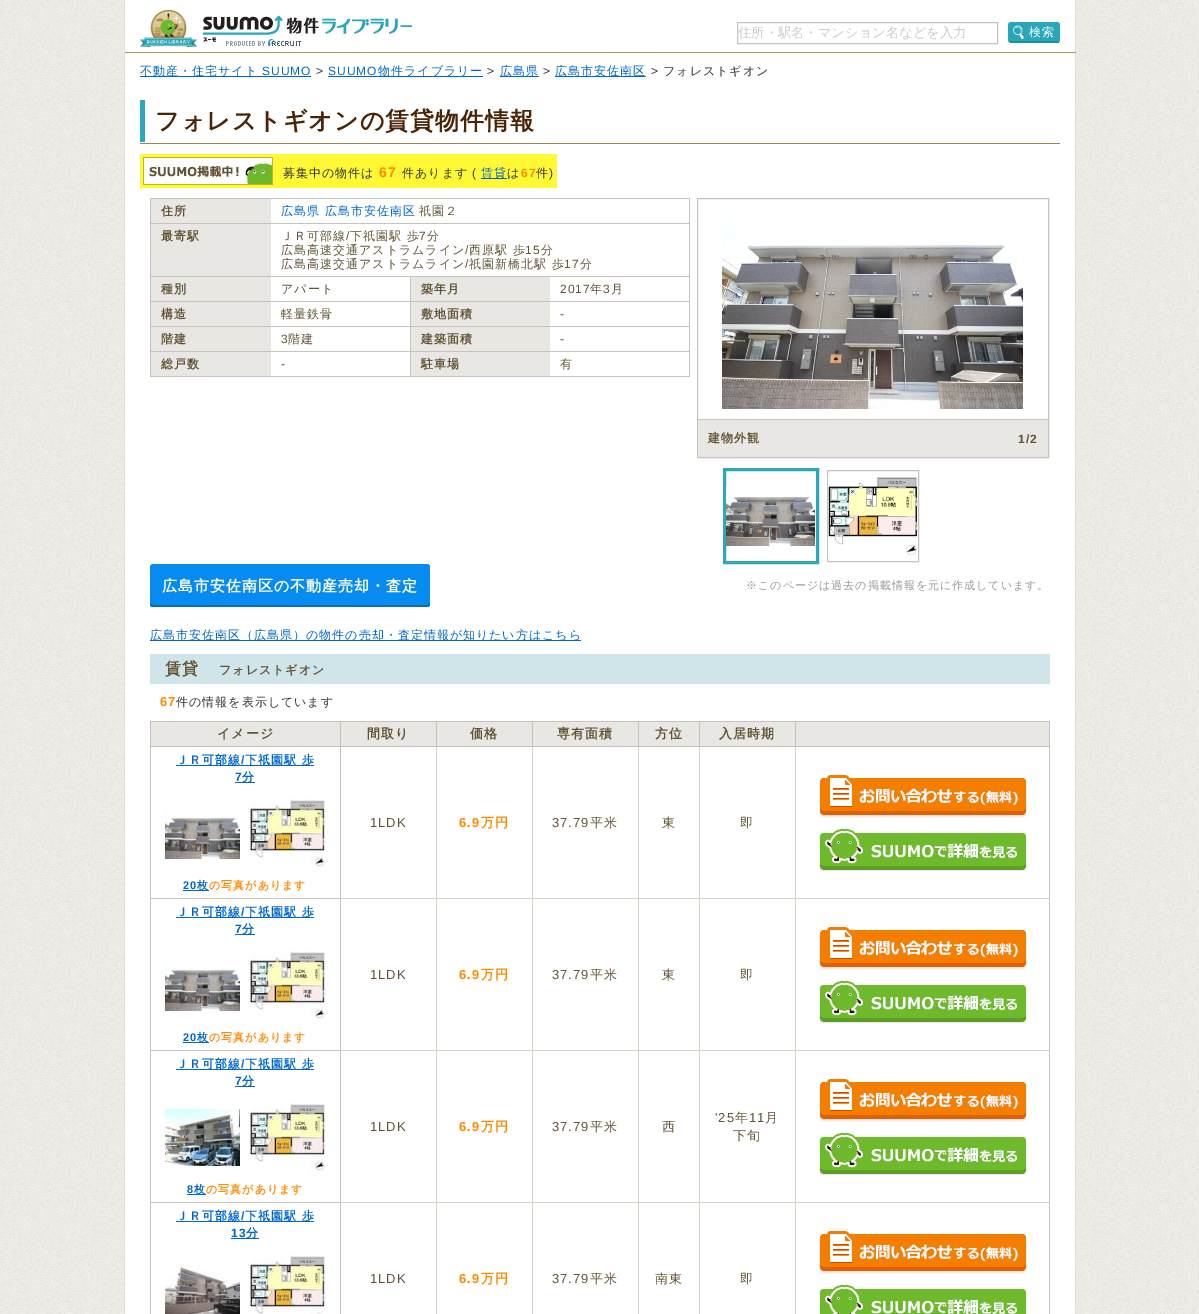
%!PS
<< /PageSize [1199 1314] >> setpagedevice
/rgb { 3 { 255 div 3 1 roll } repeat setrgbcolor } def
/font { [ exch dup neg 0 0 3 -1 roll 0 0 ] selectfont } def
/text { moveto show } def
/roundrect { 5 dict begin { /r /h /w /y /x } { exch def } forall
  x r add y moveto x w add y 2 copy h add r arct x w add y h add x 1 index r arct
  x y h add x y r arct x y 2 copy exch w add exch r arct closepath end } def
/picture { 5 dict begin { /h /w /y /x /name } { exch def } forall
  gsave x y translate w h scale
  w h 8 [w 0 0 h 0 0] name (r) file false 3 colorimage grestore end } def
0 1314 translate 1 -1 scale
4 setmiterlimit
255 255 255 rgb
0 0 1199 1314 rectfill
(img_01.rgb) 0 0 1199 1314 picture
125 0 950 52 rectfill
225 223 219 rgb
1075 0 1 1314 rectfill
172 148 91 rgb
124 52 952 1 rectfill
225 223 219 rgb
124 0 1 1314 rectfill
(img_02.rgb) 140 10 272 37 picture
196 196 196 rgb
737.5 22.5 260 21 rectstroke
41 166 185 rgb
1008 22 52 21 3 roundrect fill
26 145 163 rgb
1010 41 49 2 rectfill
(img_03.rgb) 1013 25 11 14 picture
255 255 255 rgb
125 53 950 1261 rectfill
0 102 204 rgb
140 76 171 1 rectfill
328 76 155 1 rectfill
500 76 39 1 rectfill
555 76 91 1 rectfill
159 135 81 rgb
140 143 920 1 rectfill
45 167 190 rgb
140 100 5 42 rectfill
255 248 53 rgb
140 154 417 34 rectfill
(img_04.rgb) 143 157 130 28 picture
0 102 204 rgb
481 178 26 1 rectfill
198 195 188 rgb
150 198 540 1 rectfill
689 198 1 179 rectfill
150 376 540 1 rectfill
150 198 1 179 rectfill
232 231 228 rgb
151 199 120 24 rectfill
151 224 120 52 rectfill
198 195 188 rgb
150 223 540 1 rectfill
232 231 228 rgb
151 277 120 24 rectfill
198 195 188 rgb
410 276 280 1 rectfill
410 301 280 1 rectfill
410 326 280 1 rectfill
410 351 280 1 rectfill
410 351 1 26 rectfill
150 351 261 1 rectfill
410 326 1 26 rectfill
150 326 261 1 rectfill
410 301 1 26 rectfill
150 301 261 1 rectfill
410 276 1 26 rectfill
150 276 261 1 rectfill
232 231 228 rgb
411 277 139 24 rectfill
151 302 120 24 rectfill
411 302 139 24 rectfill
151 327 120 24 rectfill
411 327 139 24 rectfill
151 352 120 24 rectfill
411 352 139 24 rectfill
198 195 188 rgb
697.5 198.5 351 259 rectstroke
(img_05.rgb) 722 209 301 200 picture
232 231 228 rgb
698 420 350 37 rectfill
198 195 188 rgb
698 419 350 1 rectfill
45 167 190 rgb
2 setlinewidth
724 469 94 94 rectstroke
1 setlinewidth
725.5 470.5 91 91 rectstroke
(img_06.rgb) 726 486 89 60 picture
198 195 188 rgb
827.5 470.5 91 91 rectstroke
(img_07.rgb) 828 477 90 78 picture
6 139 241 rgb
150 564 280 43 3 roundrect fill
11 108 186 rgb
150 602 moveto 0 2 rlineto 0 2 1 3 3 3 rcurveto 274 0 rlineto 2 0 3 -1 3 -3 rcurveto 0 -2 rlineto 0 2 -1 3 -3 3 rcurveto -274 0 rlineto -2 0 -3 -1 -3 -3 rcurveto closepath fill
0 102 204 rgb
150 640 431 1 rectfill
207 229 233 rgb
150 654 900 30 rectfill
198 195 188 rgb
150 721 900 1 rectfill
1049 721 1 593 rectfill
150 721 1 593 rectfill
232 231 228 rgb
151 722 189 24 rectfill
341 722 95 24 rectfill
198 195 188 rgb
340 746 710 1 rectfill
220 207 200 rgb
795 1202 1 112 rectfill
795 1202 255 1 rectfill
795 1050 1 153 rectfill
795 1050 255 1 rectfill
795 898 1 153 rectfill
795 898 255 1 rectfill
795 746 1 153 rectfill
699 1202 1 112 rectfill
699 1202 97 1 rectfill
699 1050 1 153 rectfill
699 1050 97 1 rectfill
699 898 1 153 rectfill
699 898 97 1 rectfill
699 746 1 153 rectfill
638 1202 1 112 rectfill
638 1202 62 1 rectfill
638 1050 1 153 rectfill
638 1050 62 1 rectfill
638 898 1 153 rectfill
638 898 62 1 rectfill
638 746 1 153 rectfill
532 1202 1 112 rectfill
532 1202 107 1 rectfill
532 1050 1 153 rectfill
532 1050 107 1 rectfill
532 898 1 153 rectfill
532 898 107 1 rectfill
532 746 1 153 rectfill
436 1202 1 112 rectfill
436 1202 97 1 rectfill
436 1050 1 153 rectfill
436 1050 97 1 rectfill
436 898 1 153 rectfill
436 898 97 1 rectfill
436 746 1 153 rectfill
198 195 188 rgb
340 1202 1 112 rectfill
150 1202 191 1 rectfill
220 207 200 rgb
340 1202 97 1 rectfill
198 195 188 rgb
340 1050 1 153 rectfill
150 1050 191 1 rectfill
220 207 200 rgb
340 1050 97 1 rectfill
198 195 188 rgb
340 898 1 153 rectfill
150 898 191 1 rectfill
220 207 200 rgb
340 898 97 1 rectfill
198 195 188 rgb
340 746 1 153 rectfill
150 746 191 1 rectfill
340 721 1 26 rectfill
232 231 228 rgb
437 722 95 24 rectfill
198 195 188 rgb
436 721 1 26 rectfill
232 231 228 rgb
533 722 105 24 rectfill
198 195 188 rgb
532 721 1 26 rectfill
232 231 228 rgb
639 722 60 24 rectfill
198 195 188 rgb
638 721 1 26 rectfill
232 231 228 rgb
700 722 95 24 rectfill
198 195 188 rgb
699 721 1 26 rectfill
232 231 228 rgb
796 722 253 24 rectfill
198 195 188 rgb
795 721 1 26 rectfill
0 102 204 rgb
176 765 138 1 rectfill
235 782 20 1 rectfill
(img_08.rgb) 165 809 75 50 picture
(img_09.rgb) 250 796 75 72 picture
183 890 26 1 rectfill
(img_10.rgb) 819 775 208 43 picture
(img_11.rgb) 819 828 208 43 picture
176 917 138 1 rectfill
235 934 20 1 rectfill
(img_08.rgb) 165 961 75 50 picture
(img_09.rgb) 250 948 75 72 picture
183 1042 26 1 rectfill
(img_10.rgb) 819 927 208 43 picture
(img_11.rgb) 819 980 208 43 picture
176 1069 138 1 rectfill
235 1086 20 1 rectfill
(img_12.rgb) 165 1109 75 57 picture
(img_13.rgb) 250 1100 75 72 picture
187 1194 19 1 rectfill
(img_10.rgb) 819 1079 208 43 picture
(img_11.rgb) 819 1132 208 43 picture
176 1221 138 1 rectfill
231 1238 28 1 rectfill
(img_14.rgb) 165 1265 75 49 picture
(img_15.rgb) 250 1252 75 62 picture
(img_10.rgb) 819 1231 208 43 picture
(img_16.rgb) 819 1284 208 30 picture
/WenQuanYiZenHei-Medium 13.3 font
204 204 204 rgb
(住所・駅名・マンション名などを入力) 738 37 text
/WenQuanYiZenHei-Medium 12 font
255 255 255 rgb
1029 36 moveto 1 0 (検索) ashow
0 102 204 rgb
140 75 moveto 1 0 (不動産・住宅サイト) ashow
/LiberationSans-Regular 12 font
262 75 moveto 1 0 (SUUMO) ashow
51 51 51 rgb
316 75 moveto 1 0 (>) ashow
0 102 204 rgb
328 75 moveto 1 0 (SUUMO) ashow
/WenQuanYiZenHei-Medium 12 font
378 75 moveto 1 0 (物件ライブラリー) ashow
/LiberationSans-Regular 12 font
51 51 51 rgb
487 75 moveto 1 0 (>) ashow
/WenQuanYiZenHei-Medium 12 font
0 102 204 rgb
500 75 moveto 1 0 (広島県) ashow
/LiberationSans-Regular 12 font
51 51 51 rgb
543 75 moveto 1 0 (>) ashow
/WenQuanYiZenHei-Medium 12 font
0 102 204 rgb
555 75 moveto 1 0 (広島市安佐南区) ashow
/LiberationSans-Regular 12 font
51 51 51 rgb
651 75 moveto 1 0 (>) ashow
/WenQuanYiZenHei-Medium 12 font
663 75 moveto 1 0 (フォレストギオン) ashow
/WenQuanYiZenHei-Bold 24 font
74 36 5 rgb
155 129 moveto 1 0 (フォレストギオンの賃貸物件情報) ashow
/WenQuanYiZenHei-Medium 12 font
51 51 51 rgb
283 177 moveto 1 0 (募集中の物件は) ashow
/LiberationSans-Bold 14 font
255 138 0 rgb
379 177 moveto 1 0 (67) ashow
/WenQuanYiZenHei-Medium 12 font
51 51 51 rgb
402 177 moveto 1 0 (件あります) ashow
/LiberationSans-Regular 12 font
472 177 moveto 1 0 (\() ashow
/WenQuanYiZenHei-Medium 12 font
0 102 204 rgb
481 177 moveto 1 0 (賃貸) ashow
51 51 51 rgb
507 177 moveto 1 0 (は) ashow
/LiberationSans-Bold 12 font
255 138 0 rgb
521 177 moveto 1 0 (67) ashow
/WenQuanYiZenHei-Medium 12 font
51 51 51 rgb
536 177 moveto 1 0 (件) ashow
/LiberationSans-Regular 12 font
549 177 moveto 1 0 (\)) ashow
/WenQuanYiZenHei-Bold 12 font
97 83 52 rgb
161 215 moveto 1 0 (住所) ashow
/WenQuanYiZenHei-Medium 12 font
0 102 204 rgb
281 215 moveto 1 0 (広島県 広島市安佐南区) ashow
97 83 52 rgb
419 215 moveto 1 0 (祇園２) ashow
/WenQuanYiZenHei-Bold 12 font
161 240 moveto 1 0 (最寄駅) ashow
/WenQuanYiZenHei-Medium 12 font
281 240 moveto 1 0 (ＪＲ可部線) ashow
/LiberationSans-Regular 12 font
346 240 moveto 1 0 (/) ashow
/WenQuanYiZenHei-Medium 12 font
350 240 moveto 1 0 (下祇園駅 歩) ashow
/LiberationSans-Regular 12 font
419 240 moveto 1 0 (7) ashow
/WenQuanYiZenHei-Medium 12 font
427 240 moveto 1 0 (分) ashow
281 254 moveto 1 0 (広島高速交通アストラムライン) ashow
/LiberationSans-Regular 12 font
465 254 moveto 1 0 (/) ashow
/WenQuanYiZenHei-Medium 12 font
469 254 moveto 1 0 (西原駅 歩) ashow
/LiberationSans-Regular 12 font
525 254 moveto 1 0 (15) ashow
/WenQuanYiZenHei-Medium 12 font
541 254 moveto 1 0 (分) ashow
281 268 moveto 1 0 (広島高速交通アストラムライン) ashow
/LiberationSans-Regular 12 font
465 268 moveto 1 0 (/) ashow
/WenQuanYiZenHei-Medium 12 font
469 268 moveto 1 0 (祇園新橋北駅 歩) ashow
/LiberationSans-Regular 12 font
564 268 moveto 1 0 (17) ashow
/WenQuanYiZenHei-Medium 12 font
580 268 moveto 1 0 (分) ashow
/WenQuanYiZenHei-Bold 12 font
161 293 moveto 1 0 (種別) ashow
/WenQuanYiZenHei-Medium 12 font
281 293 moveto 1 0 (アパート) ashow
/WenQuanYiZenHei-Bold 12 font
421 293 moveto 1 0 (築年月) ashow
/LiberationSans-Regular 12 font
560 293 moveto 1 0 (2017) ashow
/WenQuanYiZenHei-Medium 12 font
590 293 moveto 1 0 (年) ashow
/LiberationSans-Regular 12 font
603 293 moveto 1 0 (3) ashow
/WenQuanYiZenHei-Medium 12 font
611 293 moveto 1 0 (月) ashow
/WenQuanYiZenHei-Bold 12 font
161 318 moveto 1 0 (構造) ashow
/WenQuanYiZenHei-Medium 12 font
281 318 moveto 1 0 (軽量鉄骨) ashow
/WenQuanYiZenHei-Bold 12 font
421 318 moveto 1 0 (敷地面積) ashow
/LiberationSans-Regular 12 font
560 318 moveto 1 0 (‐) ashow
/WenQuanYiZenHei-Bold 12 font
161 343 moveto 1 0 (階建) ashow
/LiberationSans-Regular 12 font
281 343 moveto 1 0 (3) ashow
/WenQuanYiZenHei-Medium 12 font
288 343 moveto 1 0 (階建) ashow
/WenQuanYiZenHei-Bold 12 font
421 343 moveto 1 0 (建築面積) ashow
/LiberationSans-Regular 12 font
560 343 moveto 1 0 (‐) ashow
/WenQuanYiZenHei-Bold 12 font
161 368 moveto 1 0 (総戸数) ashow
/LiberationSans-Regular 12 font
281 368 moveto 1 0 (‐) ashow
/WenQuanYiZenHei-Bold 12 font
421 368 moveto 1 0 (駐車場) ashow
/WenQuanYiZenHei-Medium 12 font
560 368 moveto 1 0 (有) ashow
/WenQuanYiZenHei-Bold 12 font
708 442 moveto 1 0 (建物外観) ashow
/LiberationSans-Bold 12 font
1018 443 moveto 1 0 (1/2) ashow
/WenQuanYiZenHei-Bold 15 font
255 255 255 rgb
162 591 moveto 1 0 (広島市安佐南区の不動産売却・査定) ashow
/WenQuanYiZenHei-Medium 11 font
153 153 153 rgb
746 589 moveto 1 0 (※このページは過去の掲載情報を元に作成しています。) ashow
/WenQuanYiZenHei-Medium 12 font
0 102 204 rgb
150 639 moveto 1 0 (広島市安佐南区（広島県）の物件の売却・査定情報が知りたい方はこちら) ashow
/WenQuanYiZenHei-Bold 16 font
97 83 52 rgb
165 674 moveto 1 0 (賃貸) ashow
/WenQuanYiZenHei-Bold 12 font
219 674 moveto 1 0 (フォレストギオン) ashow
/LiberationSans-Bold 13 font
255 138 0 rgb
160 706 moveto 1 0 (67) ashow
/WenQuanYiZenHei-Medium 12 font
51 51 51 rgb
176 706 moveto 1 0 (件の情報を表示しています) ashow
/WenQuanYiZenHei-Bold 13 font
97 83 52 rgb
217 738 moveto 1 0 (イメージ) ashow
367 738 moveto 1 0 (間取り) ashow
470 738 moveto 1 0 (価格) ashow
557 738 moveto 1 0 (専有面積) ashow
655 738 moveto 1 0 (方位) ashow
719 738 moveto 1 0 (入居時期) ashow
/WenQuanYiZenHei-Bold 12 font
0 102 204 rgb
176 764 moveto 1 0 (ＪＲ可部線) ashow
/LiberationSans-Bold 12 font
241 764 moveto 1 0 (/) ashow
/WenQuanYiZenHei-Bold 12 font
245 764 moveto 1 0 (下祇園駅 歩) ashow
/LiberationSans-Bold 12 font
235 781 moveto 1 0 (7) ashow
/WenQuanYiZenHei-Bold 12 font
242 781 moveto 1 0 (分) ashow
/LiberationSans-Bold 11 font
183 889 moveto 1 0 (20) ashow
/WenQuanYiZenHei-Bold 11 font
197 889 moveto 1 0 (枚) ashow
255 138 0 rgb
209 889 moveto 1 0 (の写真があります) ashow
/LiberationSans-Regular 13 font
97 83 52 rgb
370 827 moveto 1 0 (1LDK) ashow
/LiberationSans-Bold 13 font
255 138 0 rgb
459 827 moveto 1 0 (6.9) ashow
/WenQuanYiZenHei-Bold 13 font
481 827 moveto 1 0 (万円) ashow
/LiberationSans-Regular 13 font
97 83 52 rgb
552 827 moveto 1 0 (37.79) ashow
/WenQuanYiZenHei-Medium 13 font
590 827 moveto 1 0 (平米) ashow
662 827 moveto 1 0 (東) ashow
740 827 moveto 1 0 (即) ashow
/WenQuanYiZenHei-Bold 12 font
0 102 204 rgb
176 916 moveto 1 0 (ＪＲ可部線) ashow
/LiberationSans-Bold 12 font
241 916 moveto 1 0 (/) ashow
/WenQuanYiZenHei-Bold 12 font
245 916 moveto 1 0 (下祇園駅 歩) ashow
/LiberationSans-Bold 12 font
235 933 moveto 1 0 (7) ashow
/WenQuanYiZenHei-Bold 12 font
242 933 moveto 1 0 (分) ashow
/LiberationSans-Bold 11 font
183 1041 moveto 1 0 (20) ashow
/WenQuanYiZenHei-Bold 11 font
197 1041 moveto 1 0 (枚) ashow
255 138 0 rgb
209 1041 moveto 1 0 (の写真があります) ashow
/LiberationSans-Regular 13 font
97 83 52 rgb
370 979 moveto 1 0 (1LDK) ashow
/LiberationSans-Bold 13 font
255 138 0 rgb
459 979 moveto 1 0 (6.9) ashow
/WenQuanYiZenHei-Bold 13 font
481 979 moveto 1 0 (万円) ashow
/LiberationSans-Regular 13 font
97 83 52 rgb
552 979 moveto 1 0 (37.79) ashow
/WenQuanYiZenHei-Medium 13 font
590 979 moveto 1 0 (平米) ashow
662 979 moveto 1 0 (東) ashow
740 979 moveto 1 0 (即) ashow
/WenQuanYiZenHei-Bold 12 font
0 102 204 rgb
176 1068 moveto 1 0 (ＪＲ可部線) ashow
/LiberationSans-Bold 12 font
241 1068 moveto 1 0 (/) ashow
/WenQuanYiZenHei-Bold 12 font
245 1068 moveto 1 0 (下祇園駅 歩) ashow
/LiberationSans-Bold 12 font
235 1085 moveto 1 0 (7) ashow
/WenQuanYiZenHei-Bold 12 font
242 1085 moveto 1 0 (分) ashow
/LiberationSans-Bold 11 font
187 1193 moveto 1 0 (8) ashow
/WenQuanYiZenHei-Bold 11 font
194 1193 moveto 1 0 (枚) ashow
255 138 0 rgb
206 1193 moveto 1 0 (の写真があります) ashow
/LiberationSans-Regular 13 font
97 83 52 rgb
370 1131 moveto 1 0 (1LDK) ashow
/LiberationSans-Bold 13 font
255 138 0 rgb
459 1131 moveto 1 0 (6.9) ashow
/WenQuanYiZenHei-Bold 13 font
481 1131 moveto 1 0 (万円) ashow
/LiberationSans-Regular 13 font
97 83 52 rgb
552 1131 moveto 1 0 (37.79) ashow
/WenQuanYiZenHei-Medium 13 font
590 1131 moveto 1 0 (平米) ashow
662 1131 moveto 1 0 (西) ashow
/LiberationSans-Regular 13 font
715 1122 moveto 1 0 ('25) ashow
/WenQuanYiZenHei-Medium 13 font
735 1122 moveto 1 0 (年) ashow
/LiberationSans-Regular 13 font
749 1122 moveto 1 0 (11) ashow
/WenQuanYiZenHei-Medium 13 font
765 1122 moveto 1 0 (月) ashow
733 1140 moveto 1 0 (下旬) ashow
/WenQuanYiZenHei-Bold 12 font
0 102 204 rgb
176 1220 moveto 1 0 (ＪＲ可部線) ashow
/LiberationSans-Bold 12 font
241 1220 moveto 1 0 (/) ashow
/WenQuanYiZenHei-Bold 12 font
245 1220 moveto 1 0 (下祇園駅 歩) ashow
/LiberationSans-Bold 12 font
231 1237 moveto 1 0 (13) ashow
/WenQuanYiZenHei-Bold 12 font
246 1237 moveto 1 0 (分) ashow
/LiberationSans-Regular 13 font
97 83 52 rgb
370 1283 moveto 1 0 (1LDK) ashow
/LiberationSans-Bold 13 font
255 138 0 rgb
459 1283 moveto 1 0 (6.9) ashow
/WenQuanYiZenHei-Bold 13 font
481 1283 moveto 1 0 (万円) ashow
/LiberationSans-Regular 13 font
97 83 52 rgb
552 1283 moveto 1 0 (37.79) ashow
/WenQuanYiZenHei-Medium 13 font
590 1283 moveto 1 0 (平米) ashow
655 1283 moveto 1 0 (南東) ashow
740 1283 moveto 1 0 (即) ashow
showpage
